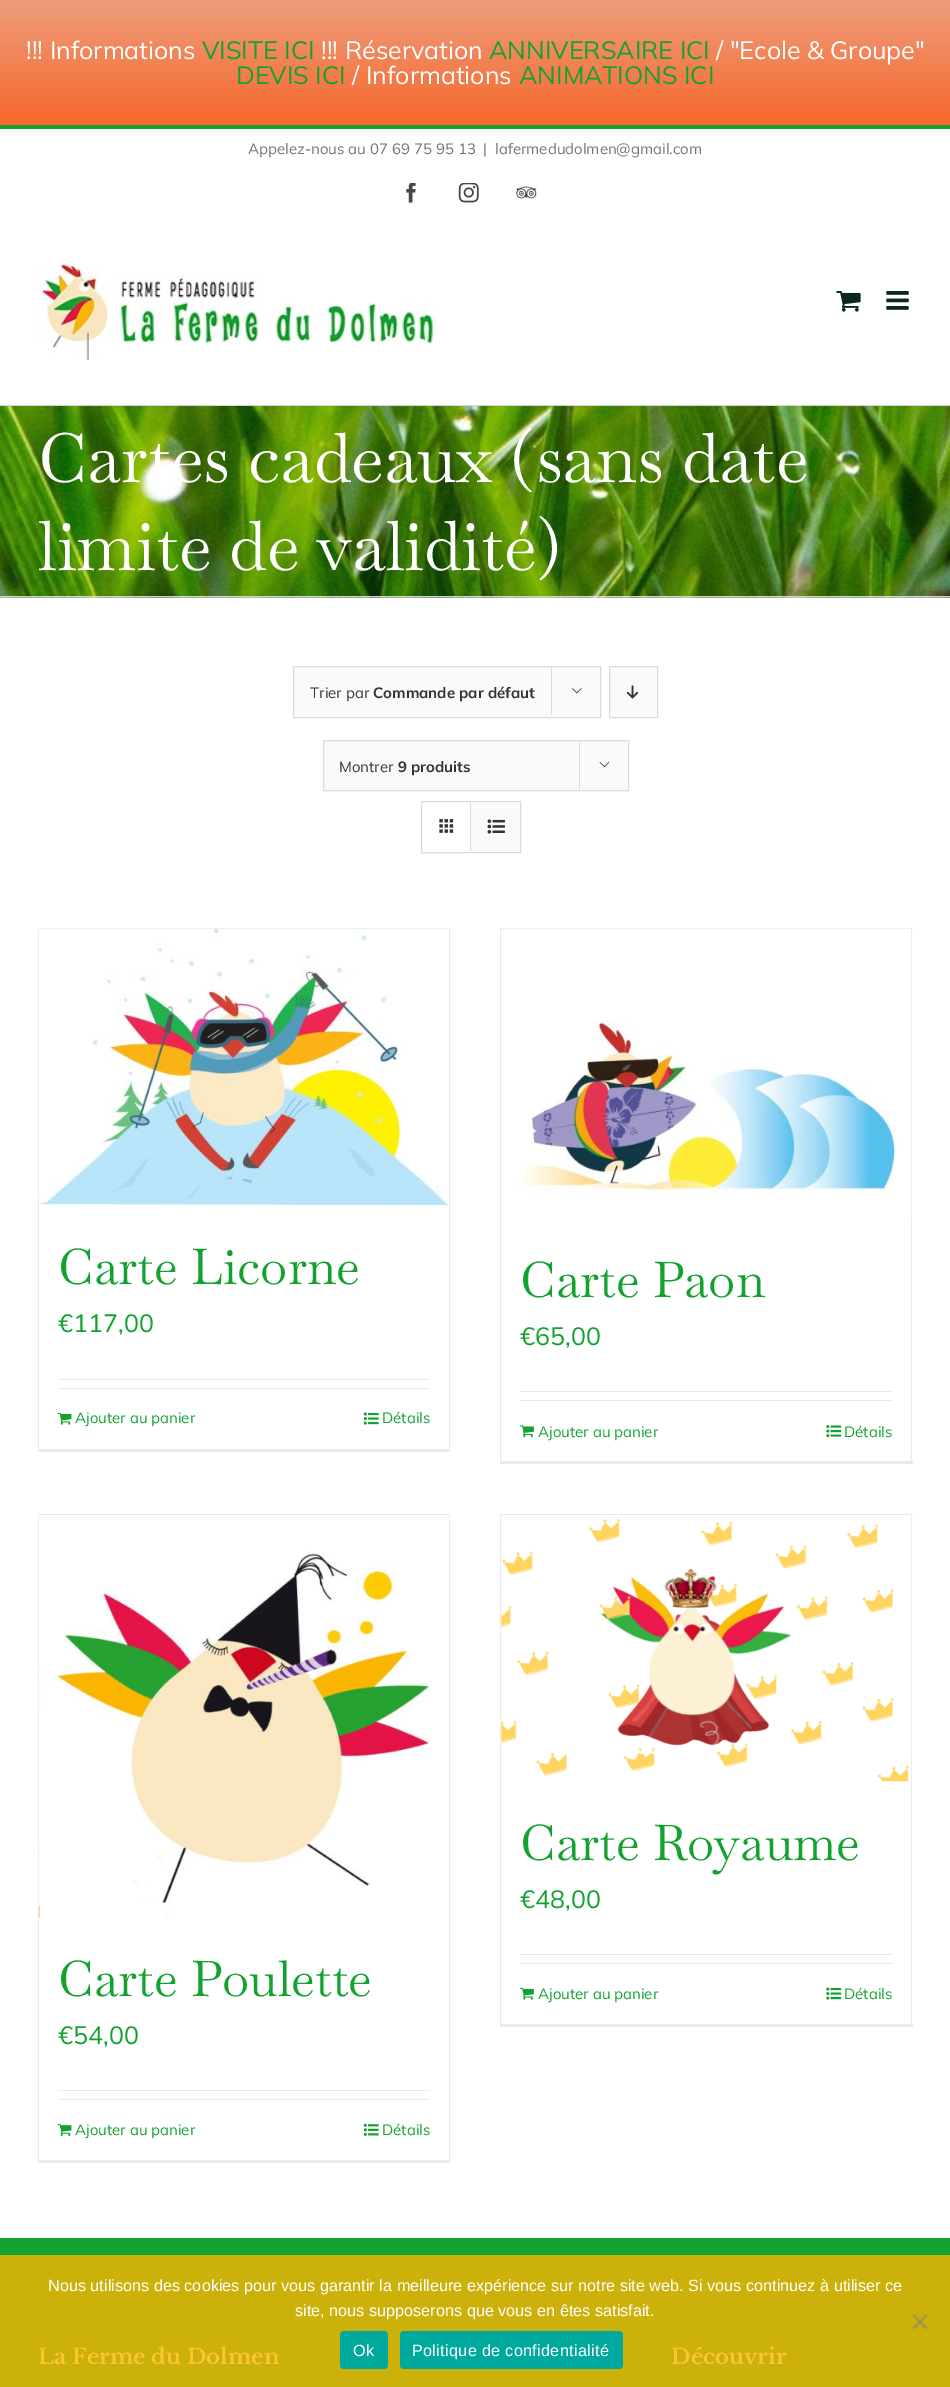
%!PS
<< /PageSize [950 2387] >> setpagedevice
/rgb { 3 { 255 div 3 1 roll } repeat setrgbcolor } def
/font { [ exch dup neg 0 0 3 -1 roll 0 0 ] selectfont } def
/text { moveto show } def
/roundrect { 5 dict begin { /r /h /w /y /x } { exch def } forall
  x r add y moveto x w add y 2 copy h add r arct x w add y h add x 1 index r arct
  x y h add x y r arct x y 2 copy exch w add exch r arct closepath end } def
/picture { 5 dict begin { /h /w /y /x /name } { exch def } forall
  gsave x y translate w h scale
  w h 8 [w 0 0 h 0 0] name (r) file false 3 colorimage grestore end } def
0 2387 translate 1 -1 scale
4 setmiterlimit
255 255 255 rgb
0 0 950 2387 rectfill
gsave 0 0 moveto 950 0 rlineto 0 125 rlineto -950 0 rlineto closepath clip newpath
<< /ShadingType 2 /ColorSpace /DeviceRGB /Coords [475 0 475 125] /Extend [true true] /Function << /FunctionType 2 /Domain [0 1] /C0 [0.929 0.612 0.486] /C1 [0.969 0.408 0.173] /N 1 >> >> shfill grestore
18 162 48 rgb
0 125 950 4 rectfill
(img_01.rgb) 406 183 10 20 picture
(img_02.rgb) 458 183 21 20 picture
(img_03.rgb) 516 186 21 13 picture
(img_04.rgb) 37 263 400 98 picture
(img_05.rgb) 836 291 25 21 picture
(img_06.rgb) 886 291 23 19 picture
246 246 246 rgb
0 597 950 1 rectfill
(img_07.rgb) 0 406 950 192 picture
210 211 212 rgb
0 405 950 1 rectfill
0 596 950 1 rectfill
251 250 249 rgb
293.5 666.5 moveto 307 0 rlineto 0 51 rlineto -307 0 rlineto closepath gsave fill grestore
219 219 219 rgb
stroke
551 666 1 49 rectfill
(img_08.rgb) 572 688 10 6 picture
251 250 249 rgb
609.5 666.5 moveto 48 0 rlineto 0 51 rlineto -48 0 rlineto closepath gsave fill grestore
219 219 219 rgb
stroke
(img_09.rgb) 626 685 13 14 picture
251 250 249 rgb
323.5 740.5 moveto 305 0 rlineto 0 50 rlineto -305 0 rlineto closepath gsave fill grestore
219 219 219 rgb
stroke
579 740 1 49 rectfill
(img_10.rgb) 599 762 11 6 picture
421.5 801.5 99 51 rectstroke
470 803 1 48 rectfill
(img_11.rgb) 439 819 15 14 picture
251 250 249 rgb
471 803 49 48 rectfill
(img_12.rgb) 487 819 18 15 picture
235 234 234 rgb
38 928 412 1 rectfill
449 928 1 523 rectfill
38 1449 412 3 rectfill
38 928 1 523 rectfill
(img_13.rgb) 38 928 411 277 picture
58 1379 372 1 rectfill
58 1388 372 1 rectfill
(img_14.rgb) 57 1412 15 13 picture
(img_15.rgb) 363 1412 16 13 picture
500 928 413 1 rectfill
911 928 1 536 rectfill
500 1461 413 3 rectfill
500 928 1 536 rectfill
(img_16.rgb) 502 928 410 290 picture
520 1391 373 1 rectfill
520 1400 373 1 rectfill
(img_17.rgb) 520 1425 14 13 picture
(img_18.rgb) 826 1425 16 13 picture
500 1514 413 1 rectfill
911 1514 1 512 rectfill
500 2024 413 3 rectfill
500 1514 1 512 rectfill
(img_19.rgb) 501 1515 411 267 picture
520 1954 373 1 rectfill
520 1963 373 1 rectfill
(img_20.rgb) 520 1987 14 13 picture
(img_21.rgb) 826 1987 16 13 picture
38 1514 412 1 rectfill
449 1514 1 649 rectfill
38 2160 412 3 rectfill
38 1514 1 649 rectfill
(img_22.rgb) 38 1515 392 403 picture
58 2090 372 1 rectfill
58 2099 372 1 rectfill
(img_23.rgb) 57 2124 15 12 picture
(img_24.rgb) 363 2123 16 13 picture
18 162 48 rgb
0 2238 950 17 rectfill
204 177 10 rgb
0 2255 950 132 rectfill
166 153 69 rgb
925.5 2314.5 moveto 2 1.5 rlineto -13 13.5 rlineto -2 -2 rlineto closepath fill
912.5 2316 moveto 2 -1.5 rlineto 13 13 rlineto -2 2 rlineto closepath fill
0 169 157 rgb
340 2331 48 38 4 roundrect fill
400 2331 223 38 4 roundrect fill
/Mulish-Regular 25 font
255 255 255 rgb
(!!! Informations) 26 59 text
18 162 48 rgb
(VISITE ICI) 202 59 text
255 255 255 rgb
(!!! Réservation) 321 59 text
18 162 48 rgb
(ANNIVERSAIRE ICI) 489 59 text
255 255 255 rgb
(/ "Ecole & Groupe") 716 59 text
18 162 48 rgb
(DEVIS ICI) 236 84 text
255 255 255 rgb
(/ Informations) 352 84 text
18 162 48 rgb
(ANIMATIONS ICI) 519 84 text
/Mulish-Regular 15 font
116 116 116 rgb
(Appelez-nous au 07 69 75 95 13) 248 154 text
(|) 483 154 text
(lafermedudolmen@gmail.com) 495 154 text
/Baskervville-Regular 68.4 font
255 255 255 rgb
(Cartes cadeaux \(sans date) 38 482 text
(limite de validité\)) 38 570 text
/Mulish-Regular 15 font
51 51 51 rgb
(Trier par) 310 698 text
/Mulish-Bold 15 font
(Commande par défaut) 373 698 text
/Mulish-Regular 15 font
(Montrer) 339 772 text
/Mulish-Bold 15 font
(9 produits) 398 772 text
/Baskervville-Regular 49.5 font
18 162 48 rgb
(Carte Licorne) 58 1284 text
/Mulish-Regular 25 font
(€117,00) 58 1332 text
/Mulish-Regular 15 font
(Ajouter au panier) 75 1423 text
(Détails) 382 1423 text
/Baskervville-Regular 49.5 font
(Carte Paon) 520 1297 text
/Mulish-Regular 25 font
(€65,00) 520 1345 text
/Mulish-Regular 15 font
(Ajouter au panier) 538 1437 text
(Détails) 844 1437 text
/Baskervville-Regular 49.5 font
(Carte Royaume) 520 1860 text
/Mulish-Regular 25 font
(€48,00) 520 1908 text
/Mulish-Regular 15 font
(Ajouter au panier) 538 1999 text
(Détails) 844 1999 text
/Baskervville-Regular 49.5 font
(Carte Poulette) 58 1996 text
/Mulish-Regular 25 font
(€54,00) 58 2044 text
/Mulish-Regular 15 font
(Ajouter au panier) 75 2135 text
(Détails) 382 2135 text
/LibreBaskerville-Bold 21.25 font
251 196 51 rgb
(La Ferme du Dolmen) 38 2364 text
(Découvrir) 671 2364 text
/LiberationSans-Regular 16.25 font
255 255 255 rgb
(Nous utilisons des cookies pour vous garantir la meilleure expérience sur notre site web. Si vous continuez à utiliser ce) 48 2291 text
(site, nous supposerons que vous en êtes satisfait.) 295 2316 text
353 2356 moveto 0.3 0 (Ok) ashow
412 2356 moveto 0.3 0 (Politique de confidentialité) ashow
showpage
